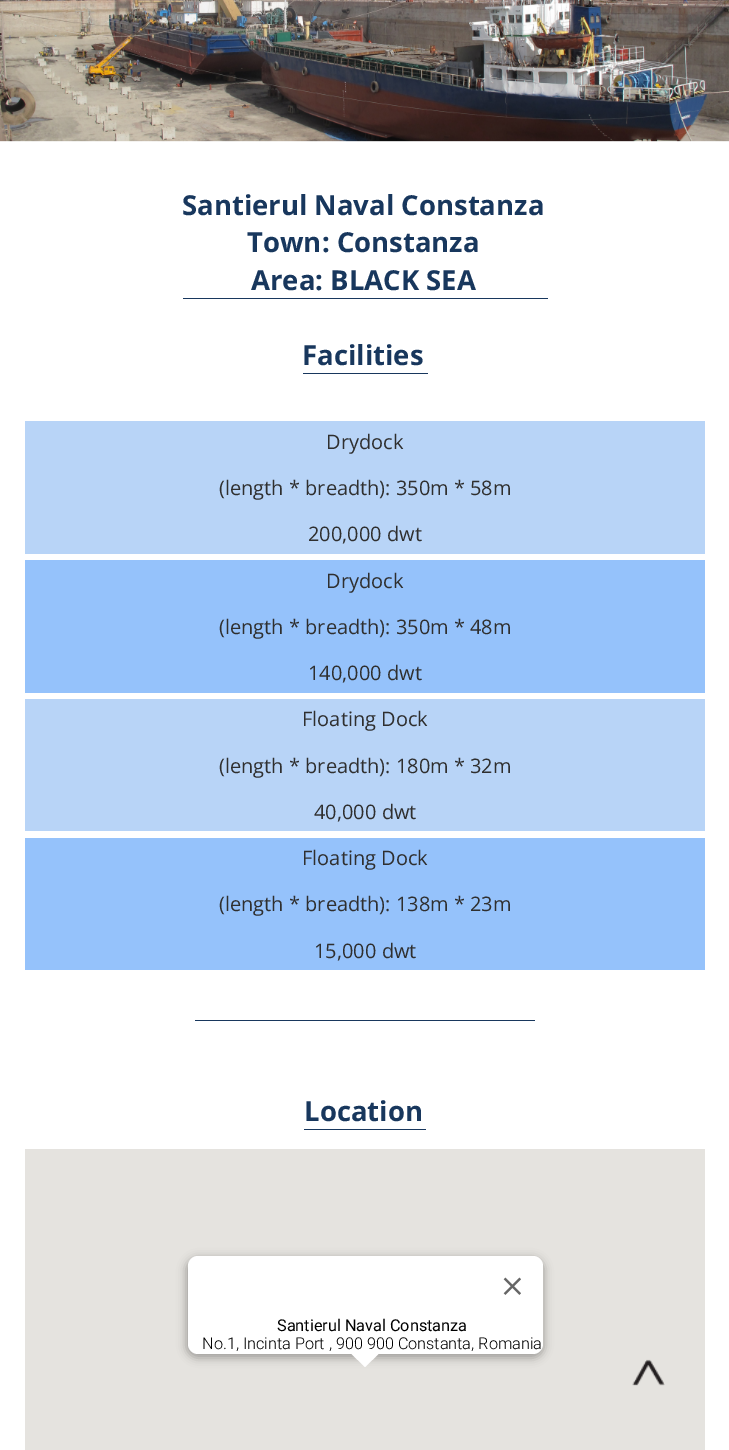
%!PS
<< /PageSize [729 1450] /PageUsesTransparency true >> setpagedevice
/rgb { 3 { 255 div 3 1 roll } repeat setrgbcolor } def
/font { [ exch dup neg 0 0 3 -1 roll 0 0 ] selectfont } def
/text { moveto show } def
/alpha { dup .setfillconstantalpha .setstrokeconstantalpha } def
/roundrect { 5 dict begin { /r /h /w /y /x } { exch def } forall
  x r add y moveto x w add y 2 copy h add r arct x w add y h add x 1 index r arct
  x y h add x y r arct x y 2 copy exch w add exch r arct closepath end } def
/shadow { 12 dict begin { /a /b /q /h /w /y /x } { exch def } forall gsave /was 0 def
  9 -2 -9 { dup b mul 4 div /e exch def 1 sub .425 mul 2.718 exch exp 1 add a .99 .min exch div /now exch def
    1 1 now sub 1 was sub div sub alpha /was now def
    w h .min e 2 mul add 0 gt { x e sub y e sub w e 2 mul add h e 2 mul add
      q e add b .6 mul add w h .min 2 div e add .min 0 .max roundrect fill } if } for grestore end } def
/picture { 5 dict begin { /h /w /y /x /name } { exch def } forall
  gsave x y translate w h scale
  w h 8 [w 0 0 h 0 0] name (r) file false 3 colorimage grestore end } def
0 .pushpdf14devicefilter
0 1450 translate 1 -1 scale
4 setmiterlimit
255 255 255 rgb
0 0 729 1450 rectfill
(img_01.rgb) 0 0 729 142 picture
24 55 93 rgb
183 298 365 1 rectfill
303 373 125 1 rectfill
184 212 247 rgb
25 421 680 133 rectfill
149 194 251 rgb
25 560 680 133 rectfill
184 212 247 rgb
25 699 680 132 rectfill
149 194 251 rgb
25 838 680 132 rectfill
24 55 93 rgb
195 1020 340 1 rectfill
304 1129 122 1 rectfill
229 227 223 rgb
25 1149 680 301 rectfill
0 0 0 rgb
186 1258 358 100 11 4.5 0.3 shadow
255 255 255 rgb
188 1256 355 98 10 roundrect fill
(img_02.rgb) 503 1277 18 18 picture
379.5 1353 moveto -29 0 rlineto 14.5 14 rlineto closepath fill
(img_03.rgb) 632 1359 33 27 picture
/OpenSans-Bold 27.5 font
24 55 93 rgb
(Santierul Naval Constanza) 182 215 text
(Town: Constanza) 247 252 text
(Area: BLACK SEA) 251 290 text
(Facilities) 302 365 text
/OpenSans-Regular 20 font
47 47 47 rgb
(Drydock) 326 449 text
(\(length * breadth\): 350m * 58m) 219 495 text
(200,000 dwt) 308 541 text
(Drydock) 326 588 text
(\(length * breadth\): 350m * 48m) 219 634 text
(140,000 dwt) 308 680 text
(Floating Dock) 302 726 text
(\(length * breadth\): 180m * 32m) 219 773 text
(40,000 dwt) 314 819 text
(Floating Dock) 302 865 text
(\(length * breadth\): 138m * 23m) 219 911 text
(15,000 dwt) 314 958 text
/OpenSans-Bold 27.5 font
24 55 93 rgb
(Location) 304 1121 text
/Roboto-Regular 16.25 font
0 0 0 rgb
(Santierul Naval Constanza) 277 1331 text
/Roboto-Light 16.25 font
(No.1, Incinta Port , 900 900 Constanta, Romania) 202 1349 text
.poppdf14devicefilter showpage
